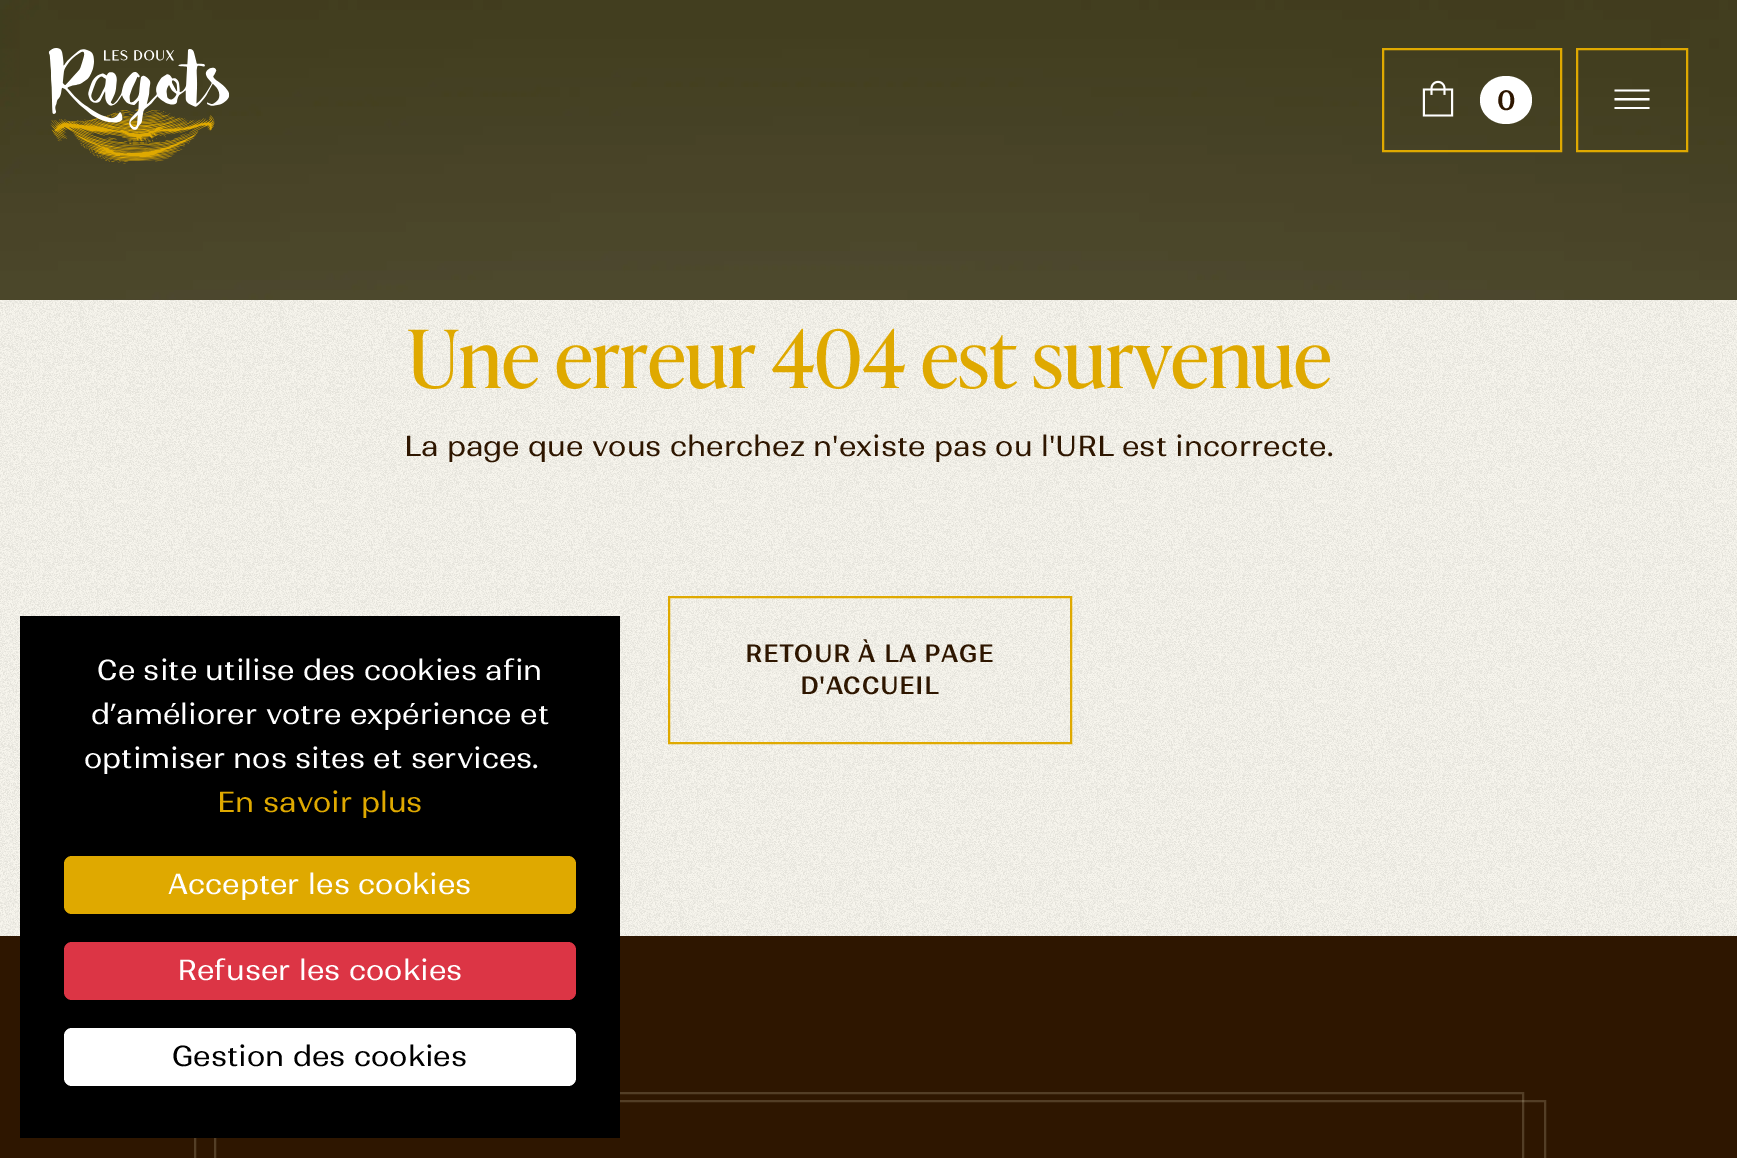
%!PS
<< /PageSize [1737 1158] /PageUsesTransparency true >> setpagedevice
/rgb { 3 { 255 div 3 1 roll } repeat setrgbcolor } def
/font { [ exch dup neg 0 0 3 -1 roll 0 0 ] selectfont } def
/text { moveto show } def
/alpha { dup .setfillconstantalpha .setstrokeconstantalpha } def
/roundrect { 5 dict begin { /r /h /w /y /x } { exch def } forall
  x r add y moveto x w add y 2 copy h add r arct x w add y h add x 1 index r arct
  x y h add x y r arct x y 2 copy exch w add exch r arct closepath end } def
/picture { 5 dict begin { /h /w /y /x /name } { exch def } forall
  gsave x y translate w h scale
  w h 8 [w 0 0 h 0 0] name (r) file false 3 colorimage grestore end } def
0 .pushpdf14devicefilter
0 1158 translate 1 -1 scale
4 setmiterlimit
247 245 237 rgb
0 0 1737 1158 rectfill
(img_01.rgb) 0 0 1737 300 picture
(img_02.rgb) 48 48 182 116 picture
223 169 0 rgb
2 setlinewidth
1383 49 178 102 rectstroke
(img_03.rgb) 1422 80 32 37 picture
255 255 255 rgb
1506 76 moveto 14.5 0 26 10.5 26 24 rcurveto 0 13.5 -11.5 24 -26 24 rcurveto -14.5 0 -26 -10.5 -26 -24 rcurveto 0 -13.5 11.5 -24 26 -24 rcurveto closepath fill
223 169 0 rgb
1577 49 110 102 rectstroke
255 255 255 rgb
1614.5 98 moveto 35 0 rlineto 0 2.5 rlineto -35 0 rlineto closepath 1614.5 107 moveto 35 0 rlineto 0 2 rlineto -35 0 rlineto closepath 1614.5 89.5 moveto 35 0 rlineto 0 2 rlineto -35 0 rlineto closepath fill
(img_04.rgb) 0 300 1737 636 picture
223 169 0 rgb
669 597 402 146 rectstroke
46 22 0 rgb
0 936 1737 222 rectfill
83 62 38 rgb
215 1093 1308 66 rectstroke
0.2 alpha
229 220 189 rgb
195 1101 1350 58 rectstroke
1 alpha
0 0 0 rgb
20 616 600 522 rectfill
223 169 0 rgb
64 856 512 58 8 roundrect fill
220 53 69 rgb
64 942 512 58 8 roundrect fill
255 255 255 rgb
64 1028 512 58 8 roundrect fill
/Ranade-Medium 28 font
46 22 0 rgb
1497 110 moveto 0.5 0 (0) ashow
/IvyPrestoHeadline-Regular 80 font
223 169 0 rgb
(Une erreur 404 est survenue) 407 388 text
/Ranade-Regular 28 font
46 22 0 rgb
(La page que vous cherchez n'existe pas ou l'URL est incorrecte.) 404 456 text
/Ranade-Medium 24 font
745 662 moveto 0.5 0 (RETOUR À LA PAGE) ashow
800 694 moveto 0.5 0 (D'ACCUEIL) ashow
/Ranade-Regular 28 font
255 255 255 rgb
(Ce site utilise des cookies afin) 97 680 text
(d’améliorer votre expérience et) 91 724 text
(optimiser nos sites et services.) 84 768 text
223 169 0 rgb
(En savoir plus) 217 812 text
255 255 255 rgb
(Accepter les cookies) 168 894 text
(Refuser les cookies) 177 980 text
0 0 0 rgb
(Gestion des cookies) 172 1066 text
.poppdf14devicefilter showpage
